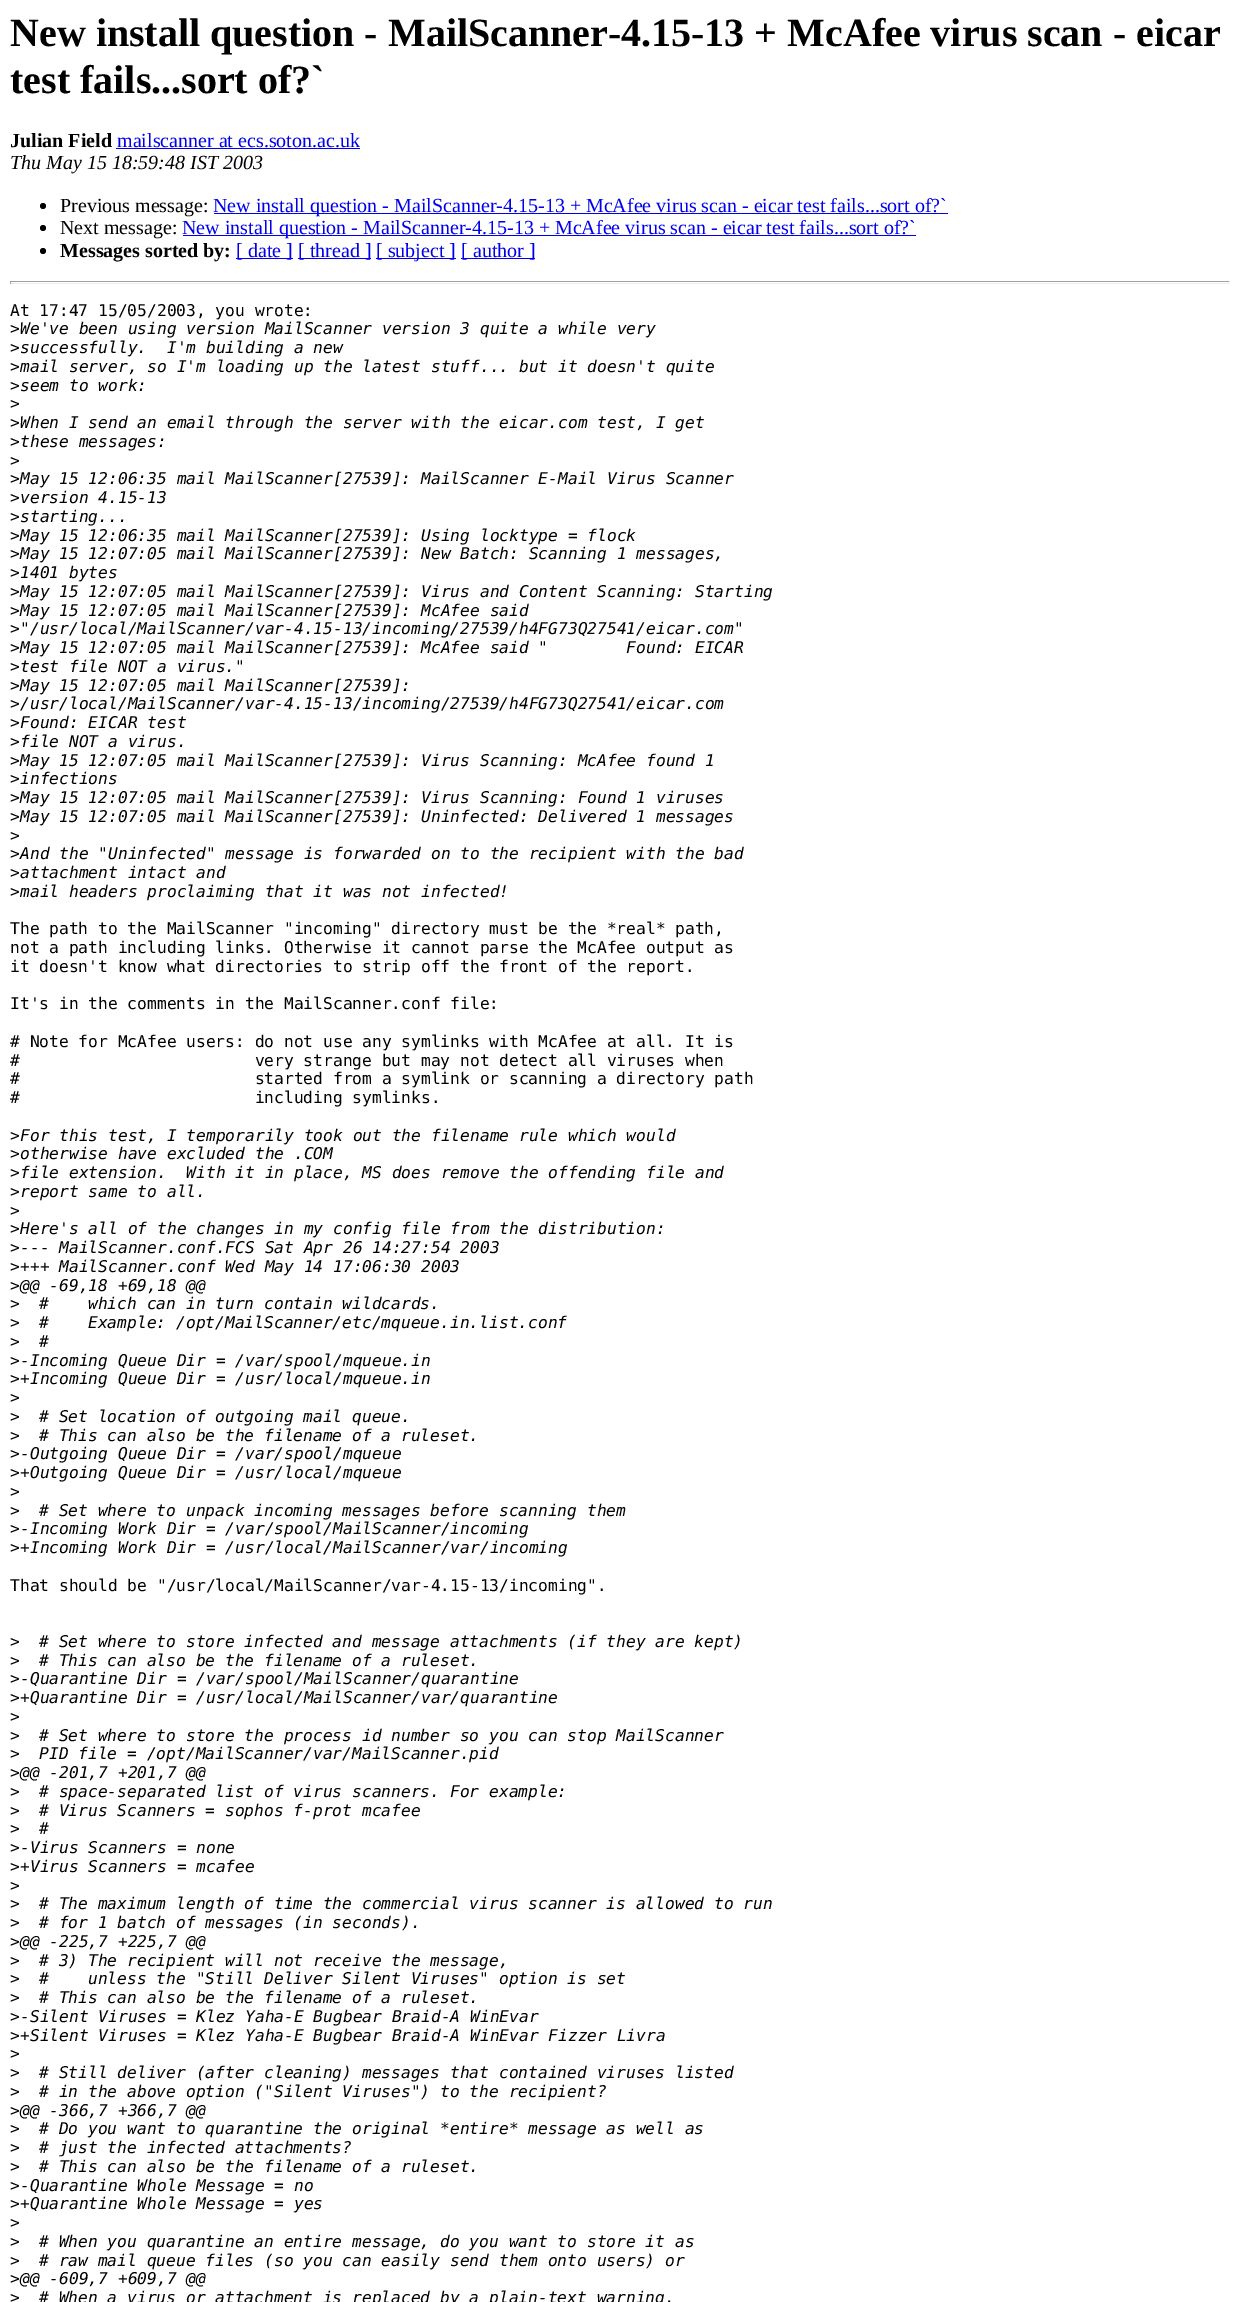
%!PS
<< /PageSize [1240 2302] >> setpagedevice
/rgb { 3 { 255 div 3 1 roll } repeat setrgbcolor } def
/font { [ exch dup neg 0 0 3 -1 roll 0 0 ] selectfont } def
/text { moveto show } def
/circle { newpath 0 360 arc closepath } def
0 2302 translate 1 -1 scale
4 setmiterlimit
255 255 255 rgb
0 0 1240 2302 rectfill
0 0 238 rgb
116 148 244 1 rectfill
0 0 0 rgb
43 206 3 circle fill
0 0 238 rgb
214 213 734 1 rectfill
0 0 0 rgb
43 228 3 circle fill
0 0 238 rgb
183 235 733 1 rectfill
0 0 0 rgb
43 251 3 circle fill
0 0 238 rgb
236 258 57 1 rectfill
298 258 73 1 rectfill
376 258 80 1 rectfill
461 258 74 1 rectfill
159 159 159 rgb
10 281 1220 1 rectfill
238 238 238 rgb
1229 281 1 3 rectfill
10 283 1220 1 rectfill
159 159 159 rgb
10 281 1 3 rectfill
/LiberationSerif-Bold 40 font
0 0 0 rgb
(New install question - MailScanner-4.15-13 + McAfee virus scan - eicar) 10 46 text
(test fails...sort of?`) 10 93 text
/LiberationSerif-Bold 20 font
(Julian Field) 10 147 text
/LiberationSerif-Regular 20 font
0 0 238 rgb
(mailscanner at ecs.soton.ac.uk) 117 147 text
/LiberationSerif-Italic 20 font
0 0 0 rgb
(Thu May 15 18:59:48 IST 2003) 10 169 text
/LiberationSerif-Regular 20 font
(Previous message:) 60 212 text
0 0 238 rgb
(New install question - MailScanner-4.15-13 + McAfee virus scan - eicar test fails...sort of?`) 213 212 text
0 0 0 rgb
(Next message:) 60 234 text
0 0 238 rgb
(New install question - MailScanner-4.15-13 + McAfee virus scan - eicar test fails...sort of?`) 182 234 text
/LiberationSerif-Bold 20 font
0 0 0 rgb
(Messages sorted by:) 60 257 text
/LiberationSerif-Regular 20 font
0 0 238 rgb
([ date ]) 236 257 text
([ thread ]) 298 257 text
([ subject ]) 376 257 text
([ author ]) 461 257 text
/DejaVuSansMono-Regular 16.25 font
0 0 0 rgb
(At 17:47 15/05/2003, you wrote:) 10 316 text
(>) 10 334 text
/DejaVuSansMono-Italic 16.25 font
(We've been using version MailScanner version 3 quite a while very) 20 334 text
/DejaVuSansMono-Regular 16.25 font
(>) 10 353 text
/DejaVuSansMono-Italic 16.25 font
(successfully.  I'm building a new) 20 353 text
/DejaVuSansMono-Regular 16.25 font
(>) 10 372 text
/DejaVuSansMono-Italic 16.25 font
(mail server, so I'm loading up the latest stuff... but it doesn't quite) 20 372 text
/DejaVuSansMono-Regular 16.25 font
(>) 10 391 text
/DejaVuSansMono-Italic 16.25 font
(seem to work:) 20 391 text
/DejaVuSansMono-Regular 16.25 font
(>) 10 409 text
(>) 10 428 text
/DejaVuSansMono-Italic 16.25 font
(When I send an email through the server with the eicar.com test, I get) 20 428 text
/DejaVuSansMono-Regular 16.25 font
(>) 10 447 text
/DejaVuSansMono-Italic 16.25 font
(these messages:) 20 447 text
/DejaVuSansMono-Regular 16.25 font
(>) 10 466 text
(>) 10 484 text
/DejaVuSansMono-Italic 16.25 font
(May 15 12:06:35 mail MailScanner[27539]: MailScanner E-Mail Virus Scanner) 20 484 text
/DejaVuSansMono-Regular 16.25 font
(>) 10 503 text
/DejaVuSansMono-Italic 16.25 font
(version 4.15-13) 20 503 text
/DejaVuSansMono-Regular 16.25 font
(>) 10 522 text
/DejaVuSansMono-Italic 16.25 font
(starting...) 20 522 text
/DejaVuSansMono-Regular 16.25 font
(>) 10 541 text
/DejaVuSansMono-Italic 16.25 font
(May 15 12:06:35 mail MailScanner[27539]: Using locktype = flock) 20 541 text
/DejaVuSansMono-Regular 16.25 font
(>) 10 559 text
/DejaVuSansMono-Italic 16.25 font
(May 15 12:07:05 mail MailScanner[27539]: New Batch: Scanning 1 messages,) 20 559 text
/DejaVuSansMono-Regular 16.25 font
(>) 10 578 text
/DejaVuSansMono-Italic 16.25 font
(1401 bytes) 20 578 text
/DejaVuSansMono-Regular 16.25 font
(>) 10 597 text
/DejaVuSansMono-Italic 16.25 font
(May 15 12:07:05 mail MailScanner[27539]: Virus and Content Scanning: Starting) 20 597 text
/DejaVuSansMono-Regular 16.25 font
(>) 10 616 text
/DejaVuSansMono-Italic 16.25 font
(May 15 12:07:05 mail MailScanner[27539]: McAfee said) 20 616 text
/DejaVuSansMono-Regular 16.25 font
(>) 10 634 text
/DejaVuSansMono-Italic 16.25 font
("/usr/local/MailScanner/var-4.15-13/incoming/27539/h4FG73Q27541/eicar.com") 20 634 text
/DejaVuSansMono-Regular 16.25 font
(>) 10 653 text
/DejaVuSansMono-Italic 16.25 font
(May 15 12:07:05 mail MailScanner[27539]: McAfee said "        Found: EICAR) 20 653 text
/DejaVuSansMono-Regular 16.25 font
(>) 10 672 text
/DejaVuSansMono-Italic 16.25 font
(test file NOT a virus.") 20 672 text
/DejaVuSansMono-Regular 16.25 font
(>) 10 691 text
/DejaVuSansMono-Italic 16.25 font
(May 15 12:07:05 mail MailScanner[27539]:) 20 691 text
/DejaVuSansMono-Regular 16.25 font
(>) 10 709 text
/DejaVuSansMono-Italic 16.25 font
(/usr/local/MailScanner/var-4.15-13/incoming/27539/h4FG73Q27541/eicar.com) 20 709 text
/DejaVuSansMono-Regular 16.25 font
(>) 10 728 text
/DejaVuSansMono-Italic 16.25 font
(Found: EICAR test) 20 728 text
/DejaVuSansMono-Regular 16.25 font
(>) 10 747 text
/DejaVuSansMono-Italic 16.25 font
(file NOT a virus.) 20 747 text
/DejaVuSansMono-Regular 16.25 font
(>) 10 766 text
/DejaVuSansMono-Italic 16.25 font
(May 15 12:07:05 mail MailScanner[27539]: Virus Scanning: McAfee found 1) 20 766 text
/DejaVuSansMono-Regular 16.25 font
(>) 10 784 text
/DejaVuSansMono-Italic 16.25 font
(infections) 20 784 text
/DejaVuSansMono-Regular 16.25 font
(>) 10 803 text
/DejaVuSansMono-Italic 16.25 font
(May 15 12:07:05 mail MailScanner[27539]: Virus Scanning: Found 1 viruses) 20 803 text
/DejaVuSansMono-Regular 16.25 font
(>) 10 822 text
/DejaVuSansMono-Italic 16.25 font
(May 15 12:07:05 mail MailScanner[27539]: Uninfected: Delivered 1 messages) 20 822 text
/DejaVuSansMono-Regular 16.25 font
(>) 10 841 text
(>) 10 859 text
/DejaVuSansMono-Italic 16.25 font
(And the "Uninfected" message is forwarded on to the recipient with the bad) 20 859 text
/DejaVuSansMono-Regular 16.25 font
(>) 10 878 text
/DejaVuSansMono-Italic 16.25 font
(attachment intact and) 20 878 text
/DejaVuSansMono-Regular 16.25 font
(>) 10 897 text
/DejaVuSansMono-Italic 16.25 font
(mail headers proclaiming that it was not infected!) 20 897 text
/DejaVuSansMono-Regular 16.25 font
(The path to the MailScanner "incoming" directory must be the *real* path,) 10 934 text
(not a path including links. Otherwise it cannot parse the McAfee output as) 10 953 text
(it doesn't know what directories to strip off the front of the report.) 10 972 text
(It's in the comments in the MailScanner.conf file:) 10 1009 text
(# Note for McAfee users: do not use any symlinks with McAfee at all. It is) 10 1047 text
(#                        very strange but may not detect all viruses when) 10 1066 text
(#                        started from a symlink or scanning a directory path) 10 1084 text
(#                        including symlinks.) 10 1103 text
(>) 10 1141 text
/DejaVuSansMono-Italic 16.25 font
(For this test, I temporarily took out the filename rule which would) 20 1141 text
/DejaVuSansMono-Regular 16.25 font
(>) 10 1159 text
/DejaVuSansMono-Italic 16.25 font
(otherwise have excluded the .COM) 20 1159 text
/DejaVuSansMono-Regular 16.25 font
(>) 10 1178 text
/DejaVuSansMono-Italic 16.25 font
(file extension.  With it in place, MS does remove the offending file and) 20 1178 text
/DejaVuSansMono-Regular 16.25 font
(>) 10 1197 text
/DejaVuSansMono-Italic 16.25 font
(report same to all.) 20 1197 text
/DejaVuSansMono-Regular 16.25 font
(>) 10 1216 text
(>) 10 1234 text
/DejaVuSansMono-Italic 16.25 font
(Here's all of the changes in my config file from the distribution:) 20 1234 text
/DejaVuSansMono-Regular 16.25 font
(>) 10 1253 text
/DejaVuSansMono-Italic 16.25 font
(--- MailScanner.conf.FCS Sat Apr 26 14:27:54 2003) 20 1253 text
/DejaVuSansMono-Regular 16.25 font
(>) 10 1272 text
/DejaVuSansMono-Italic 16.25 font
(+++ MailScanner.conf Wed May 14 17:06:30 2003) 20 1272 text
/DejaVuSansMono-Regular 16.25 font
(>) 10 1291 text
/DejaVuSansMono-Italic 16.25 font
(@@ -69,18 +69,18 @@) 20 1291 text
/DejaVuSansMono-Regular 16.25 font
(>) 10 1309 text
/DejaVuSansMono-Italic 16.25 font
(#    which can in turn contain wildcards.) 39 1309 text
/DejaVuSansMono-Regular 16.25 font
(>) 10 1328 text
/DejaVuSansMono-Italic 16.25 font
(#    Example: /opt/MailScanner/etc/mqueue.in.list.conf) 39 1328 text
/DejaVuSansMono-Regular 16.25 font
(>) 10 1347 text
/DejaVuSansMono-Italic 16.25 font
(#) 39 1347 text
/DejaVuSansMono-Regular 16.25 font
(>) 10 1366 text
/DejaVuSansMono-Italic 16.25 font
(-Incoming Queue Dir = /var/spool/mqueue.in) 20 1366 text
/DejaVuSansMono-Regular 16.25 font
(>) 10 1384 text
/DejaVuSansMono-Italic 16.25 font
(+Incoming Queue Dir = /usr/local/mqueue.in) 20 1384 text
/DejaVuSansMono-Regular 16.25 font
(>) 10 1403 text
(>) 10 1422 text
/DejaVuSansMono-Italic 16.25 font
(# Set location of outgoing mail queue.) 39 1422 text
/DejaVuSansMono-Regular 16.25 font
(>) 10 1441 text
/DejaVuSansMono-Italic 16.25 font
(# This can also be the filename of a ruleset.) 39 1441 text
/DejaVuSansMono-Regular 16.25 font
(>) 10 1459 text
/DejaVuSansMono-Italic 16.25 font
(-Outgoing Queue Dir = /var/spool/mqueue) 20 1459 text
/DejaVuSansMono-Regular 16.25 font
(>) 10 1478 text
/DejaVuSansMono-Italic 16.25 font
(+Outgoing Queue Dir = /usr/local/mqueue) 20 1478 text
/DejaVuSansMono-Regular 16.25 font
(>) 10 1497 text
(>) 10 1516 text
/DejaVuSansMono-Italic 16.25 font
(# Set where to unpack incoming messages before scanning them) 39 1516 text
/DejaVuSansMono-Regular 16.25 font
(>) 10 1534 text
/DejaVuSansMono-Italic 16.25 font
(-Incoming Work Dir = /var/spool/MailScanner/incoming) 20 1534 text
/DejaVuSansMono-Regular 16.25 font
(>) 10 1553 text
/DejaVuSansMono-Italic 16.25 font
(+Incoming Work Dir = /usr/local/MailScanner/var/incoming) 20 1553 text
/DejaVuSansMono-Regular 16.25 font
(That should be "/usr/local/MailScanner/var-4.15-13/incoming".) 10 1591 text
(>) 10 1647 text
/DejaVuSansMono-Italic 16.25 font
(# Set where to store infected and message attachments \(if they are kept\)) 39 1647 text
/DejaVuSansMono-Regular 16.25 font
(>) 10 1666 text
/DejaVuSansMono-Italic 16.25 font
(# This can also be the filename of a ruleset.) 39 1666 text
/DejaVuSansMono-Regular 16.25 font
(>) 10 1684 text
/DejaVuSansMono-Italic 16.25 font
(-Quarantine Dir = /var/spool/MailScanner/quarantine) 20 1684 text
/DejaVuSansMono-Regular 16.25 font
(>) 10 1703 text
/DejaVuSansMono-Italic 16.25 font
(+Quarantine Dir = /usr/local/MailScanner/var/quarantine) 20 1703 text
/DejaVuSansMono-Regular 16.25 font
(>) 10 1722 text
(>) 10 1741 text
/DejaVuSansMono-Italic 16.25 font
(# Set where to store the process id number so you can stop MailScanner) 39 1741 text
/DejaVuSansMono-Regular 16.25 font
(>) 10 1759 text
/DejaVuSansMono-Italic 16.25 font
(PID file = /opt/MailScanner/var/MailScanner.pid) 39 1759 text
/DejaVuSansMono-Regular 16.25 font
(>) 10 1778 text
/DejaVuSansMono-Italic 16.25 font
(@@ -201,7 +201,7 @@) 20 1778 text
/DejaVuSansMono-Regular 16.25 font
(>) 10 1797 text
/DejaVuSansMono-Italic 16.25 font
(# space-separated list of virus scanners. For example:) 39 1797 text
/DejaVuSansMono-Regular 16.25 font
(>) 10 1816 text
/DejaVuSansMono-Italic 16.25 font
(# Virus Scanners = sophos f-prot mcafee) 39 1816 text
/DejaVuSansMono-Regular 16.25 font
(>) 10 1834 text
/DejaVuSansMono-Italic 16.25 font
(#) 39 1834 text
/DejaVuSansMono-Regular 16.25 font
(>) 10 1853 text
/DejaVuSansMono-Italic 16.25 font
(-Virus Scanners = none) 20 1853 text
/DejaVuSansMono-Regular 16.25 font
(>) 10 1872 text
/DejaVuSansMono-Italic 16.25 font
(+Virus Scanners = mcafee) 20 1872 text
/DejaVuSansMono-Regular 16.25 font
(>) 10 1891 text
(>) 10 1909 text
/DejaVuSansMono-Italic 16.25 font
(# The maximum length of time the commercial virus scanner is allowed to run) 39 1909 text
/DejaVuSansMono-Regular 16.25 font
(>) 10 1928 text
/DejaVuSansMono-Italic 16.25 font
(# for 1 batch of messages \(in seconds\).) 39 1928 text
/DejaVuSansMono-Regular 16.25 font
(>) 10 1947 text
/DejaVuSansMono-Italic 16.25 font
(@@ -225,7 +225,7 @@) 20 1947 text
/DejaVuSansMono-Regular 16.25 font
(>) 10 1966 text
/DejaVuSansMono-Italic 16.25 font
(# 3\) The recipient will not receive the message,) 39 1966 text
/DejaVuSansMono-Regular 16.25 font
(>) 10 1984 text
/DejaVuSansMono-Italic 16.25 font
(#    unless the "Still Deliver Silent Viruses" option is set) 39 1984 text
/DejaVuSansMono-Regular 16.25 font
(>) 10 2003 text
/DejaVuSansMono-Italic 16.25 font
(# This can also be the filename of a ruleset.) 39 2003 text
/DejaVuSansMono-Regular 16.25 font
(>) 10 2022 text
/DejaVuSansMono-Italic 16.25 font
(-Silent Viruses = Klez Yaha-E Bugbear Braid-A WinEvar) 20 2022 text
/DejaVuSansMono-Regular 16.25 font
(>) 10 2041 text
/DejaVuSansMono-Italic 16.25 font
(+Silent Viruses = Klez Yaha-E Bugbear Braid-A WinEvar Fizzer Livra) 20 2041 text
/DejaVuSansMono-Regular 16.25 font
(>) 10 2059 text
(>) 10 2078 text
/DejaVuSansMono-Italic 16.25 font
(# Still deliver \(after cleaning\) messages that contained viruses listed) 39 2078 text
/DejaVuSansMono-Regular 16.25 font
(>) 10 2097 text
/DejaVuSansMono-Italic 16.25 font
(# in the above option \("Silent Viruses"\) to the recipient?) 39 2097 text
/DejaVuSansMono-Regular 16.25 font
(>) 10 2116 text
/DejaVuSansMono-Italic 16.25 font
(@@ -366,7 +366,7 @@) 20 2116 text
/DejaVuSansMono-Regular 16.25 font
(>) 10 2134 text
/DejaVuSansMono-Italic 16.25 font
(# Do you want to quarantine the original *entire* message as well as) 39 2134 text
/DejaVuSansMono-Regular 16.25 font
(>) 10 2153 text
/DejaVuSansMono-Italic 16.25 font
(# just the infected attachments?) 39 2153 text
/DejaVuSansMono-Regular 16.25 font
(>) 10 2172 text
/DejaVuSansMono-Italic 16.25 font
(# This can also be the filename of a ruleset.) 39 2172 text
/DejaVuSansMono-Regular 16.25 font
(>) 10 2191 text
/DejaVuSansMono-Italic 16.25 font
(-Quarantine Whole Message = no) 20 2191 text
/DejaVuSansMono-Regular 16.25 font
(>) 10 2209 text
/DejaVuSansMono-Italic 16.25 font
(+Quarantine Whole Message = yes) 20 2209 text
/DejaVuSansMono-Regular 16.25 font
(>) 10 2228 text
(>) 10 2247 text
/DejaVuSansMono-Italic 16.25 font
(# When you quarantine an entire message, do you want to store it as) 39 2247 text
/DejaVuSansMono-Regular 16.25 font
(>) 10 2266 text
/DejaVuSansMono-Italic 16.25 font
(# raw mail queue files \(so you can easily send them onto users\) or) 39 2266 text
/DejaVuSansMono-Regular 16.25 font
(>) 10 2284 text
/DejaVuSansMono-Italic 16.25 font
(@@ -609,7 +609,7 @@) 20 2284 text
/DejaVuSansMono-Regular 16.25 font
(>) 10 2303 text
/DejaVuSansMono-Italic 16.25 font
(# When a virus or attachment is replaced by a plain-text warning,) 39 2303 text
showpage
